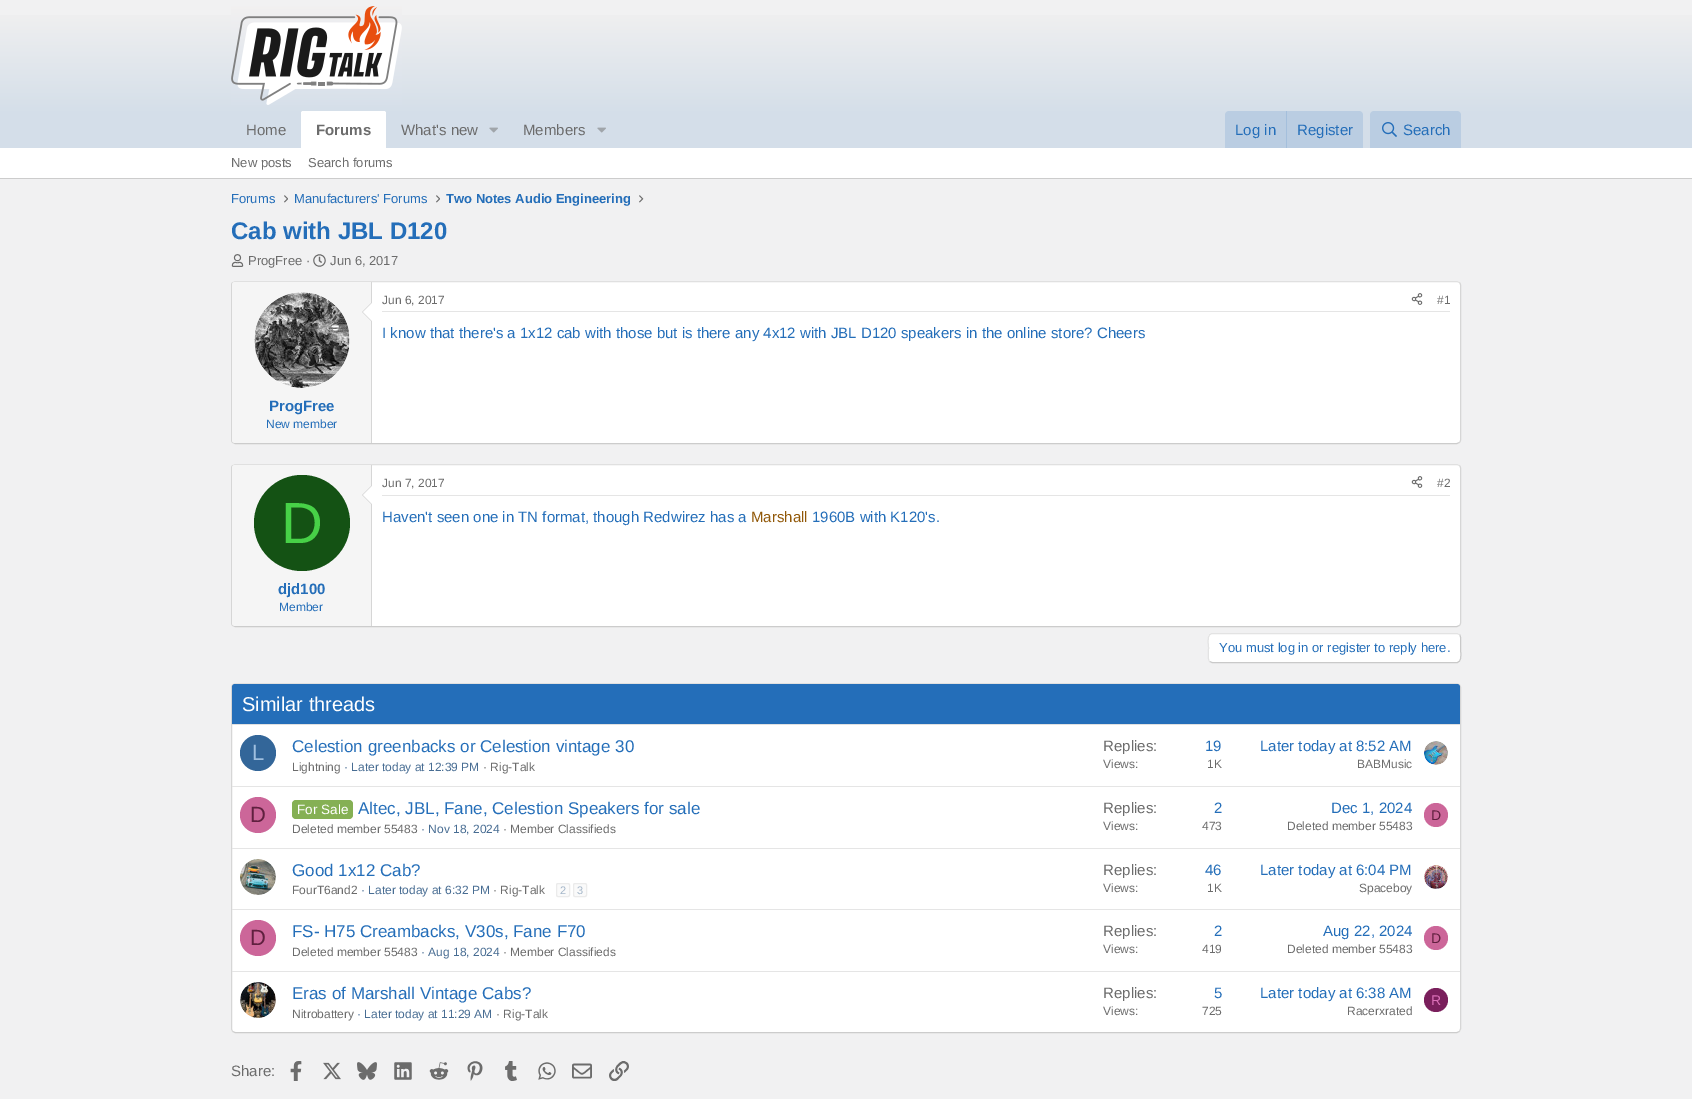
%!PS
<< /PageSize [1692 1099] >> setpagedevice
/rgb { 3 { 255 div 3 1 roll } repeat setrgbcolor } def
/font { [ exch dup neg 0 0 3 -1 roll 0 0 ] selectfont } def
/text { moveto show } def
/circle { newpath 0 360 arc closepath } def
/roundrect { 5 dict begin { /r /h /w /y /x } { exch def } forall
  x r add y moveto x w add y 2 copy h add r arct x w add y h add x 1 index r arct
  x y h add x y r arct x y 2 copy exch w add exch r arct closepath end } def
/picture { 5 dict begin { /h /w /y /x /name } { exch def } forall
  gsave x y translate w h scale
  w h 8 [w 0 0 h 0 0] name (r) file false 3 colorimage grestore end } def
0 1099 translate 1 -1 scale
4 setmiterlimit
241 241 242 rgb
0 0 1692 1099 rectfill
gsave 0 15 moveto 1692 0 rlineto 0 96 rlineto -1692 0 rlineto closepath clip newpath
<< /ShadingType 2 /ColorSpace /DeviceRGB /Coords [846 0 846 115] /Extend [true true] /Function << /FunctionType 2 /Domain [0 1] /C0 [0.953 0.945 0.945] /C1 [0.831 0.871 0.914] /N 1 >> >> shfill grestore
(img_01.rgb) 231 6 171 99 picture
212 222 233 rgb
0 111 1692 37 rectfill
255 255 255 rgb
303 111 moveto 81 0 rlineto 1 0 2 1 2 2 rcurveto 0 35 rlineto -85 0 rlineto 0 -35 rlineto 0 -1 1 -2 2 -2 rcurveto closepath fill
(img_02.rgb) 489 127 9 6 picture
(img_02.rgb) 597 127 9 6 picture
186 205 226 rgb
1229 111 moveto 130 0 rlineto 2 0 4 2 4 4 rcurveto 0 33 rlineto -138 0 rlineto 0 -33 rlineto 0 -2 2 -4 4 -4 rcurveto closepath fill
164 191 220 rgb
1286 111 1 37 rectfill
186 205 226 rgb
1374 111 moveto 83 0 rlineto 2 0 4 2 4 4 rcurveto 0 33 rlineto -91 0 rlineto 0 -33 rlineto 0 -2 2 -4 4 -4 rcurveto closepath fill
(img_03.rgb) 1382 122 15 15 picture
255 255 255 rgb
0 148 1692 30 rectfill
204 204 204 rgb
0 178 1692 1 rectfill
(img_04.rgb) 284 195 4 8 picture
(img_04.rgb) 436 195 4 8 picture
(img_05.rgb) 639 195 5 8 picture
(img_06.rgb) 231 254 13 13 picture
(img_07.rgb) 313 254 13 13 picture
255 255 255 rgb
231 281 1230 163 4 roundrect fill
224 224 224 rgb
232.5 282.5 moveto 2.5 -1 rlineto 1222 0 rlineto 2.5 1 rlineto stroke
214 214 214 rgb
1459.5 282.5 moveto 0.5 0.5 1 1.5 1 2.5 rcurveto 0 155 rlineto 0 1 -0.5 2 -1 2.5 rcurveto stroke
204 204 204 rgb
1459.5 442.5 moveto -2.5 1 rlineto -1222 0 rlineto -2.5 -1 rlineto stroke
214 214 214 rgb
232.5 442.5 moveto -0.5 -0.5 -1 -1.5 -1 -2.5 rcurveto 0 -155 rlineto 0 -1 0.5 -2 1 -2.5 rcurveto stroke
229 229 229 rgb
382 311 1068 1 rectfill
(img_08.rgb) 1411 293 12 12 picture
245 245 245 rgb
235 282 moveto 137 0 rlineto 0 161 rlineto -137 0 rlineto -1.5 0 -3 -1.5 -3 -3 rcurveto 0 -155 rlineto 0 -1.5 1.5 -3 3 -3 rcurveto closepath fill
214 214 214 rgb
371 282 1 161 rectfill
255 255 255 rgb
302 340 48 circle fill
(img_09.rgb) 254 292 96 96 picture
214 214 214 rgb
372 302 moveto 0 20 rlineto -10 -10 rlineto closepath fill
255 255 255 rgb
372 303 moveto 0 18 rlineto -9 -9 rlineto closepath fill
231 464 1230 163 4 roundrect fill
224 224 224 rgb
232.5 465.5 moveto 2.5 -1 rlineto 1222 0 rlineto 2.5 1 rlineto stroke
214 214 214 rgb
1459.5 465.5 moveto 0.5 0.5 1 1.5 1 2.5 rcurveto 0 155 rlineto 0 1 -0.5 2 -1 2.5 rcurveto stroke
204 204 204 rgb
1459.5 625.5 moveto -2.5 1 rlineto -1222 0 rlineto -2.5 -1 rlineto stroke
214 214 214 rgb
232.5 625.5 moveto -0.5 -0.5 -1 -1.5 -1 -2.5 rcurveto 0 -155 rlineto 0 -1 0.5 -2 1 -2.5 rcurveto stroke
245 245 245 rgb
235 465 moveto 137 0 rlineto 0 161 rlineto -137 0 rlineto -1.5 0 -3 -1.5 -3 -3 rcurveto 0 -155 rlineto 0 -1.5 1.5 -3 3 -3 rcurveto closepath fill
214 214 214 rgb
371 465 1 161 rectfill
372 485 moveto 0 20 rlineto -10 -10 rlineto closepath fill
255 255 255 rgb
372 486 moveto 0 18 rlineto -9 -9 rlineto closepath fill
20 82 20 rgb
302 523 48 circle fill
229 229 229 rgb
382 495 1068 1 rectfill
(img_08.rgb) 1411 476 12 12 picture
255 255 255 rgb
1208 633 253 30 4 roundrect fill
201 201 201 rgb
1459.5 634.5 moveto 2 2 1 10.5 1 13.5 rcurveto 0 3 1.5 11.5 -1.5 13.5 rcurveto -1.5 1 rlineto -245.5 0 rlineto -2.5 -1 rlineto stroke
227 227 227 rgb
1209.5 661.5 moveto -2 -2 -1 -10.5 -1 -13.5 rcurveto 0 -3 -1.5 -11.5 1.5 -13.5 rcurveto 1.5 -1 rlineto 245.5 0 rlineto 2.5 1 rlineto stroke
255 255 255 rgb
231 683 1230 350 4 roundrect fill
224 224 224 rgb
232.5 684.5 moveto 2.5 -1 rlineto 1222 0 rlineto 2.5 1 rlineto stroke
214 214 214 rgb
1459.5 684.5 moveto 1 2.5 rlineto 0 342 rlineto -1 2.5 rlineto stroke
204 204 204 rgb
1459.5 1031.5 moveto -2.5 1 rlineto -1222 0 rlineto -2.5 -1 rlineto stroke
214 214 214 rgb
232.5 1031.5 moveto -1 -2.5 rlineto 0 -342 rlineto 1 -2.5 rlineto stroke
36 110 185 rgb
235 684 moveto 1222 0 rlineto 1.5 0 3 1.5 3 3 rcurveto 0 38 rlineto -1228 0 rlineto 0 -38 rlineto 0 -1.5 1.5 -3 3 -3 rcurveto closepath fill
224 224 224 rgb
232 724 1228 1 rectfill
51 102 153 rgb
258 753 18 circle fill
(img_10.rgb) 1424 741 24 24 picture
229 229 229 rgb
232 786 1228 1 rectfill
204 102 153 rgb
258 815 18 circle fill
133 176 84 rgb
292 800 61 19 4 roundrect fill
204 102 153 rgb
1436 815 12 circle fill
229 229 229 rgb
232 848 1228 1 rectfill
(img_11.rgb) 240 859 36 36 picture
250 250 250 rgb
556.5 883.5 13 13 1.5 roundrect gsave fill grestore
235 235 235 rgb
stroke
250 250 250 rgb
573.5 883.5 13 13 1.5 roundrect gsave fill grestore
235 235 235 rgb
stroke
(img_12.rgb) 1424 865 24 24 picture
229 229 229 rgb
232 909 1228 1 rectfill
204 102 153 rgb
258 938 18 circle fill
1436 938 12 circle fill
229 229 229 rgb
232 971 1228 1 rectfill
(img_13.rgb) 240 982 36 36 picture
122 31 92 rgb
1436 1000 12 circle fill
(img_14.rgb) 290 1061 12 20 picture
(img_15.rgb) 323 1062 18 18 picture
(img_16.rgb) 357 1062 20 18 picture
(img_17.rgb) 394 1062 18 18 picture
(img_18.rgb) 429 1062 20 18 picture
(img_19.rgb) 467 1061 16 20 picture
(img_20.rgb) 505 1061 12 20 picture
(img_21.rgb) 538 1062 18 18 picture
(img_22.rgb) 572 1063 20 16 picture
(img_23.rgb) 609 1061 20 20 picture
/LiberationSans-Regular 15 font
108 108 108 rgb
(Home) 246 135 text
/LiberationSans-Bold 15 font
(Forums) 316 135 text
/LiberationSans-Regular 15 font
(What's new) 401 135 text
(Members) 523 135 text
36 110 185 rgb
(Log in) 1235 135 text
(Register) 1297 135 text
(Search) 1403 135 text
/LiberationSans-Regular 13 font
108 108 108 rgb
(New posts) 231 167 text
(Search forums) 308 167 text
36 110 185 rgb
(Forums) 231 203 text
(Manufacturers' Forums) 294 203 text
/LiberationSans-Bold 13 font
(Two Notes Audio Engineering) 446 203 text
/LiberationSans-Bold 24 font
(Cab with JBL D120) 231 239 text
/LiberationSans-Regular 13 font
108 108 108 rgb
(ProgFree ·) 248 265 text
(Jun 6, 2017) 330 265 text
/LiberationSans-Regular 12 font
(Jun 6, 2017) 382 304 text
(#1) 1437 304 text
/LiberationSans-Regular 15 font
36 110 185 rgb
(I know that there's a 1x12 cab with those but is there any 4x12 with JBL D120 speakers in the online store? Cheers) 382 338 text
/LiberationSans-Bold 15 font
(ProgFree) 269 411 text
/LiberationSans-Regular 12 font
(New member) 266 428 text
/LiberationSans-Regular 58 font
71 209 71 rgb
(D) 281 543 text
/LiberationSans-Bold 15 font
36 110 185 rgb
(djd100) 278 594 text
/LiberationSans-Regular 12 font
(Member) 279 611 text
108 108 108 rgb
(Jun 7, 2017) 382 487 text
(#2) 1437 487 text
/LiberationSans-Regular 15 font
36 110 185 rgb
(Haven't seen one in TN format, though Redwirez has a) 382 522 text
145 88 8 rgb
(Marshall) 751 522 text
36 110 185 rgb
(1960B with K120's.) 812 522 text
/LiberationSans-Regular 13 font
(You must log in or register to reply here.) 1219 652 text
/LiberationSans-Regular 20 font
255 255 255 rgb
(Similar threads) 242 711 text
/LiberationSans-Regular 22 font
159 191 223 rgb
(L) 252 760 text
/LiberationSans-Regular 17 font
36 110 185 rgb
(Celestion greenbacks or Celestion vintage 30) 292 752 text
/LiberationSans-Regular 12 font
108 108 108 rgb
(Lightning) 292 771 text
72 109 147 rgb
(· Later today at 12:39 PM) 344 771 text
108 108 108 rgb
(· Rig-Talk) 483 771 text
/LiberationSans-Regular 15 font
(Replies:) 1103 751 text
36 110 185 rgb
(19) 1205 751 text
/LiberationSans-Regular 12 font
108 108 108 rgb
(Views:) 1103 768 text
(1K) 1207 768 text
/LiberationSans-Regular 15 font
36 110 185 rgb
(Later today at 8:52 AM) 1260 751 text
/LiberationSans-Regular 12 font
108 108 108 rgb
(BABMusic) 1357 768 text
/LiberationSans-Regular 22 font
96 32 63 rgb
(D) 250 822 text
/LiberationSans-Regular 13.5 font
255 255 255 rgb
(For Sale) 297 814 text
/LiberationSans-Regular 17 font
36 110 185 rgb
(Altec, JBL, Fane, Celestion Speakers for sale) 358 814 text
/LiberationSans-Regular 12 font
108 108 108 rgb
(Deleted member 55483) 292 833 text
72 109 147 rgb
(· Nov 18, 2024) 421 833 text
108 108 108 rgb
(· Member Classifieds) 503 833 text
/LiberationSans-Regular 15 font
(Replies:) 1103 813 text
36 110 185 rgb
(2) 1214 813 text
/LiberationSans-Regular 12 font
108 108 108 rgb
(Views:) 1103 830 text
(473) 1202 830 text
/LiberationSans-Regular 15 font
36 110 185 rgb
(Dec 1, 2024) 1331 813 text
/LiberationSans-Regular 12 font
108 108 108 rgb
(Deleted member 55483) 1287 830 text
/LiberationSans-Regular 14 font
96 32 63 rgb
(D) 1431 820 text
/LiberationSans-Regular 17 font
36 110 185 rgb
(Good 1x12 Cab?) 292 876 text
/LiberationSans-Regular 12 font
108 108 108 rgb
(FourT6and2) 292 894 text
72 109 147 rgb
(· Later today at 6:32 PM) 361 894 text
108 108 108 rgb
(· Rig-Talk) 493 894 text
/LiberationSans-Regular 11 font
164 182 201 rgb
(2) 560 894 text
(3) 577 894 text
/LiberationSans-Regular 15 font
108 108 108 rgb
(Replies:) 1103 875 text
36 110 185 rgb
(46) 1205 875 text
/LiberationSans-Regular 12 font
108 108 108 rgb
(Views:) 1103 892 text
(1K) 1207 892 text
/LiberationSans-Regular 15 font
36 110 185 rgb
(Later today at 6:04 PM) 1260 875 text
/LiberationSans-Regular 12 font
108 108 108 rgb
(Spaceboy) 1359 892 text
/LiberationSans-Regular 22 font
96 32 63 rgb
(D) 250 945 text
/LiberationSans-Regular 17 font
36 110 185 rgb
(FS- H75 Creambacks, V30s, Fane F70) 292 937 text
/LiberationSans-Regular 12 font
108 108 108 rgb
(Deleted member 55483) 292 956 text
72 109 147 rgb
(· Aug 18, 2024) 421 956 text
108 108 108 rgb
(· Member Classifieds) 503 956 text
/LiberationSans-Regular 15 font
(Replies:) 1103 936 text
36 110 185 rgb
(2) 1214 936 text
/LiberationSans-Regular 12 font
108 108 108 rgb
(Views:) 1103 953 text
(419) 1202 953 text
/LiberationSans-Regular 15 font
36 110 185 rgb
(Aug 22, 2024) 1323 936 text
/LiberationSans-Regular 12 font
108 108 108 rgb
(Deleted member 55483) 1287 953 text
/LiberationSans-Regular 14 font
96 32 63 rgb
(D) 1431 943 text
/LiberationSans-Regular 17 font
36 110 185 rgb
(Eras of Marshall Vintage Cabs?) 292 999 text
/LiberationSans-Regular 12 font
108 108 108 rgb
(Nitrobattery) 292 1018 text
72 109 147 rgb
(· Later today at 11:29 AM) 357 1018 text
108 108 108 rgb
(· Rig-Talk) 496 1018 text
/LiberationSans-Regular 15 font
(Replies:) 1103 998 text
36 110 185 rgb
(5) 1214 998 text
/LiberationSans-Regular 12 font
108 108 108 rgb
(Views:) 1103 1015 text
(725) 1202 1015 text
/LiberationSans-Regular 15 font
36 110 185 rgb
(Later today at 6:38 AM) 1260 998 text
/LiberationSans-Regular 12 font
108 108 108 rgb
(Racerxrated) 1347 1015 text
/LiberationSans-Regular 14 font
219 112 184 rgb
(R) 1431 1005 text
/LiberationSans-Regular 15 font
108 108 108 rgb
(Share:) 231 1076 text
showpage
